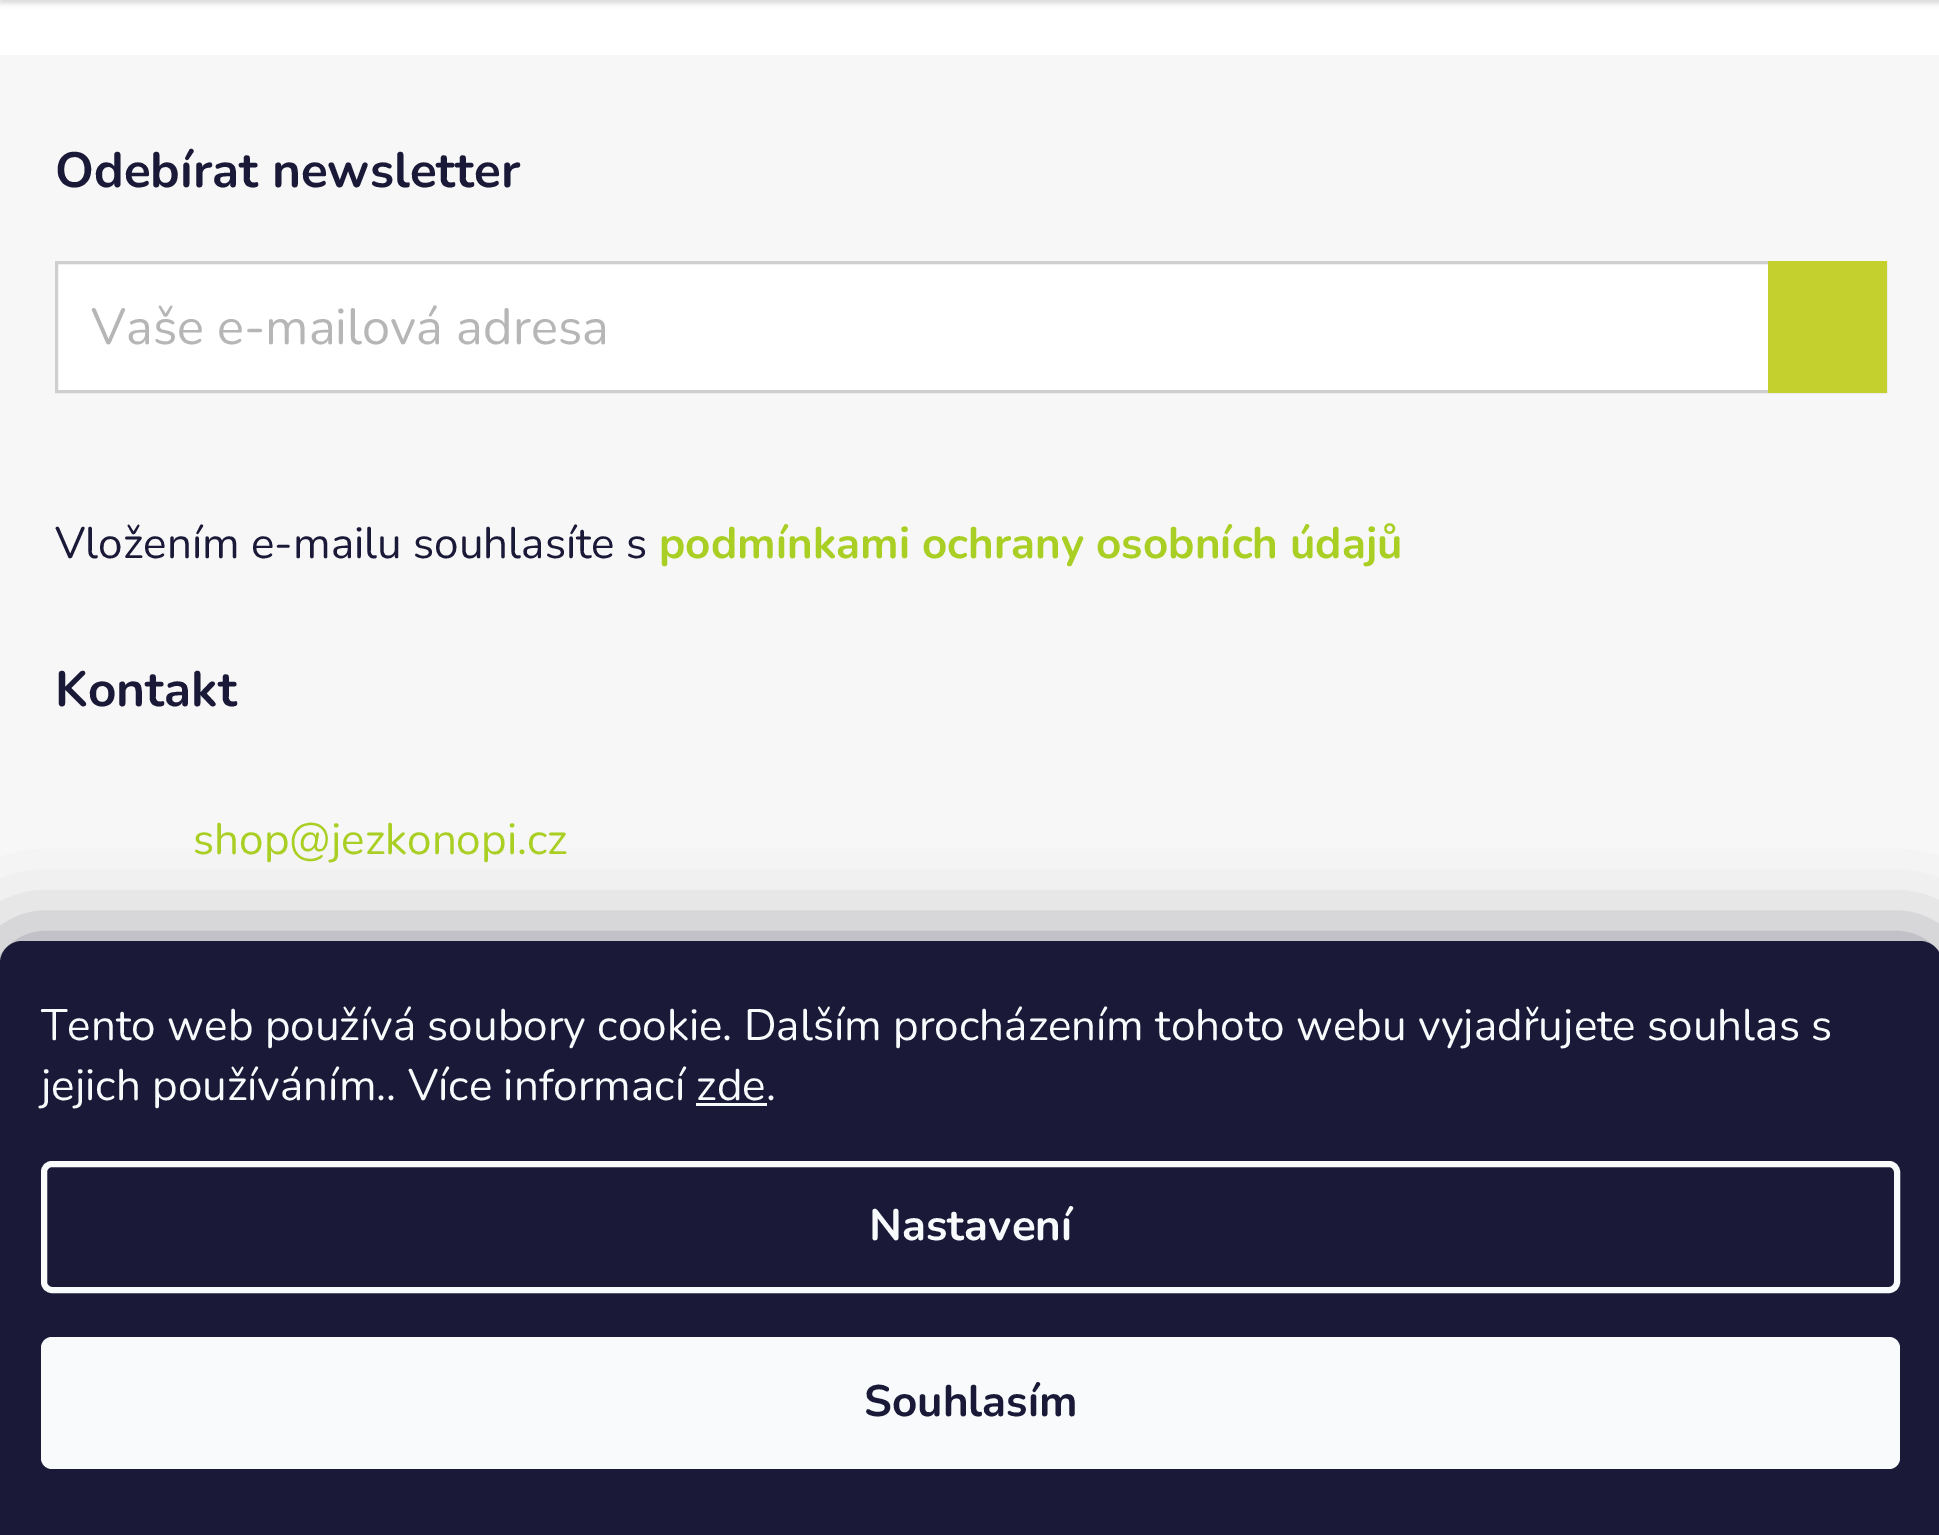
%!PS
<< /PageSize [1939 1535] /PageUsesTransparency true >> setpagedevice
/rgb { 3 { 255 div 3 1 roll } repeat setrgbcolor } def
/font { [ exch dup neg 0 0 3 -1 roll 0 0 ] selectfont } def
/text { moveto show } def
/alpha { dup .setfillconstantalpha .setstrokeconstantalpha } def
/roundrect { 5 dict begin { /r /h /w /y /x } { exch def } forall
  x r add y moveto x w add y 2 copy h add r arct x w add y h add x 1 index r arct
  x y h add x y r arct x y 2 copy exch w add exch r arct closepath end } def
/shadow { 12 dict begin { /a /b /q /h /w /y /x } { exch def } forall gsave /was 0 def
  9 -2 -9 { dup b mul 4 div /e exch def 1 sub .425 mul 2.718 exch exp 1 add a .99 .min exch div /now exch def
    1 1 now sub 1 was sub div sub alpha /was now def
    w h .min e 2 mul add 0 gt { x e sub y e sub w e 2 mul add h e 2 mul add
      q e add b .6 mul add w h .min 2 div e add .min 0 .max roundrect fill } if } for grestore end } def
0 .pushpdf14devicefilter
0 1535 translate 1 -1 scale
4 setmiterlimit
255 255 255 rgb
0 0 1939 1535 rectfill
0 0 0 rgb
0 -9 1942 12 0 3 0.16 shadow
247 247 247 rgb
0 55 1939 908 rectfill
255 255 255 rgb
58 264 1710 126 rectfill
207 207 207 rgb
3 setlinewidth
56.5 262.5 1829 129 rectstroke
196 208 45 rgb
1768 261 119 132 rectfill
27 25 57 rgb
0 941 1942 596 22 41 0.5 shadow
26 25 55 rgb
22 941 moveto 1898 0 rlineto 12 0 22 10 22 22 rcurveto 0 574 rlineto -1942 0 rlineto 0 -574 rlineto 0 -12 10 -22 22 -22 rcurveto closepath fill
248 250 251 rgb
696 1103 71 3 rectfill
6 setlinewidth
44 1164 1853 126 8 roundrect stroke
41 1337 1859 132 11 roundrect fill
/Nunito-Bold 49.5 font
26 25 55 rgb
(Odebírat newsletter) 55 187 text
/Nunito-Regular 50.6 font
182 182 182 rgb
(Vaše e-mailová adresa) 91 344 text
/Nunito-Regular 44 font
26 25 55 rgb
(Vložením e-mailu souhlasíte s) 55 558 text
/Nunito-Bold 44 font
170 207 36 rgb
(podmínkami ochrany osobních údajů) 659 558 text
/Nunito-Bold 49.5 font
26 25 55 rgb
(Kontakt) 55 706 text
/Nunito-Regular 44 font
170 207 36 rgb
(shop@jezkonopi.cz) 193 854 text
248 250 251 rgb
(Tento web používá soubory cookie. Dalším procházením tohoto webu vyjadřujete souhlas s) 41 1040 text
(jejich používáním.. Více informací zde.) 41 1100 text
/Nunito-Bold 44 font
(Nastavení) 869 1240 text
26 25 55 rgb
(Souhlasím) 864 1416 text
.poppdf14devicefilter showpage
